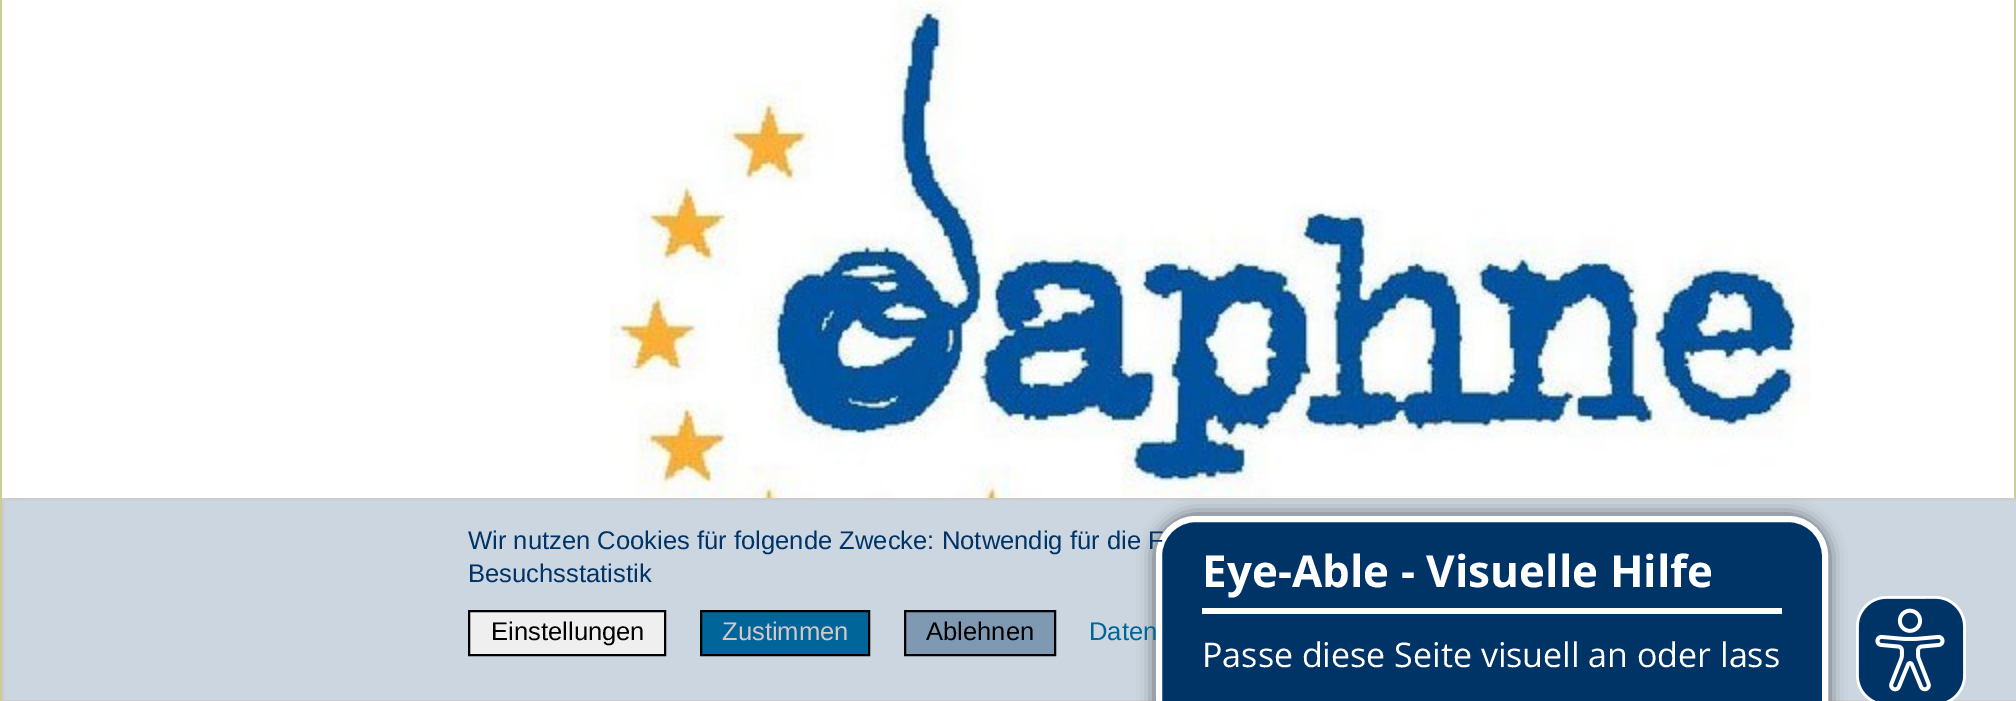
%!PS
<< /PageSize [2016 701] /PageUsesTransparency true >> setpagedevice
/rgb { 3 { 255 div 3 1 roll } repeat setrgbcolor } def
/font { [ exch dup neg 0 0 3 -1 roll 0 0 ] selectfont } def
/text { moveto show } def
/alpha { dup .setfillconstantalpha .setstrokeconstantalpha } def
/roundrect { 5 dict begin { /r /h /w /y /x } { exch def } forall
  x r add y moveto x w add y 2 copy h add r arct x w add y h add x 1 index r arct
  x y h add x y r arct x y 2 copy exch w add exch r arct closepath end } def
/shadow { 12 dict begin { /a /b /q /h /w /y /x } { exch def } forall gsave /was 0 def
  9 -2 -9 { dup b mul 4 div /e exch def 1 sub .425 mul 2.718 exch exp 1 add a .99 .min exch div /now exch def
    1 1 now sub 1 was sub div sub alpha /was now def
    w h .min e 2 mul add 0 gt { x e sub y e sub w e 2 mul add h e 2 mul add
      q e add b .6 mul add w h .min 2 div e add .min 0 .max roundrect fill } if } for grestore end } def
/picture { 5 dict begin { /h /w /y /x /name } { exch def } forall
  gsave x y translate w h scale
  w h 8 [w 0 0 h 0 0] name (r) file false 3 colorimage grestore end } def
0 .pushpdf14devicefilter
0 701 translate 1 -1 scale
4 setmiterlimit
255 255 255 rgb
0 0 2016 701 rectfill
204 204 153 rgb
2014 0 2 498 rectfill
0 0 2 701 rectfill
(img_01.rgb) 610 0 1200 498 picture
204 214 224 rgb
3 499 moveto 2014 0 rlineto 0 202 rlineto -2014 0 rlineto closepath gsave fill grestore
204 204 204 rgb
2 setlinewidth
stroke
239 239 239 rgb
469 611 moveto 196 0 rlineto 0 44 rlineto -196 0 rlineto closepath gsave fill grestore
0 0 0 rgb
stroke
0 102 153 rgb
701 611 moveto 168 0 rlineto 0 44 rlineto -168 0 rlineto closepath gsave fill grestore
0 0 0 rgb
stroke
128 153 178 rgb
905 611 moveto 150 0 rlineto 0 44 rlineto -150 0 rlineto closepath gsave fill grestore
0 0 0 rgb
stroke
1154 514 676 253 42 8 0.5 shadow
0 51 102 rgb
1159 519 666 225 37 roundrect gsave fill grestore
255 255 255 rgb
6 setlinewidth
stroke
1202 608 580 6 rectfill
(img_02.rgb) 1856 596 110 105 picture
/LiberationSans-Regular 25.6 font
0 51 102 rgb
(Wir nutzen Cookies für folgende Zwecke: Notwendig für die F) 468 549 text
(Besuchsstatistik) 468 582 text
0 0 0 rgb
(Einstellungen) 491 640 text
213 199 199 rgb
(Zustimmen) 722 640 text
0 0 0 rgb
(Ablehnen) 926 640 text
0 102 153 rgb
(Daten) 1089 640 text
/OpenSans-Bold 44 font
255 255 255 rgb
(Eye-Able - Visuelle Hilfe) 1202 587 text
/OpenSans-Regular 34 font
(Passe diese Seite visuell an oder lass) 1202 667 text
.poppdf14devicefilter showpage
